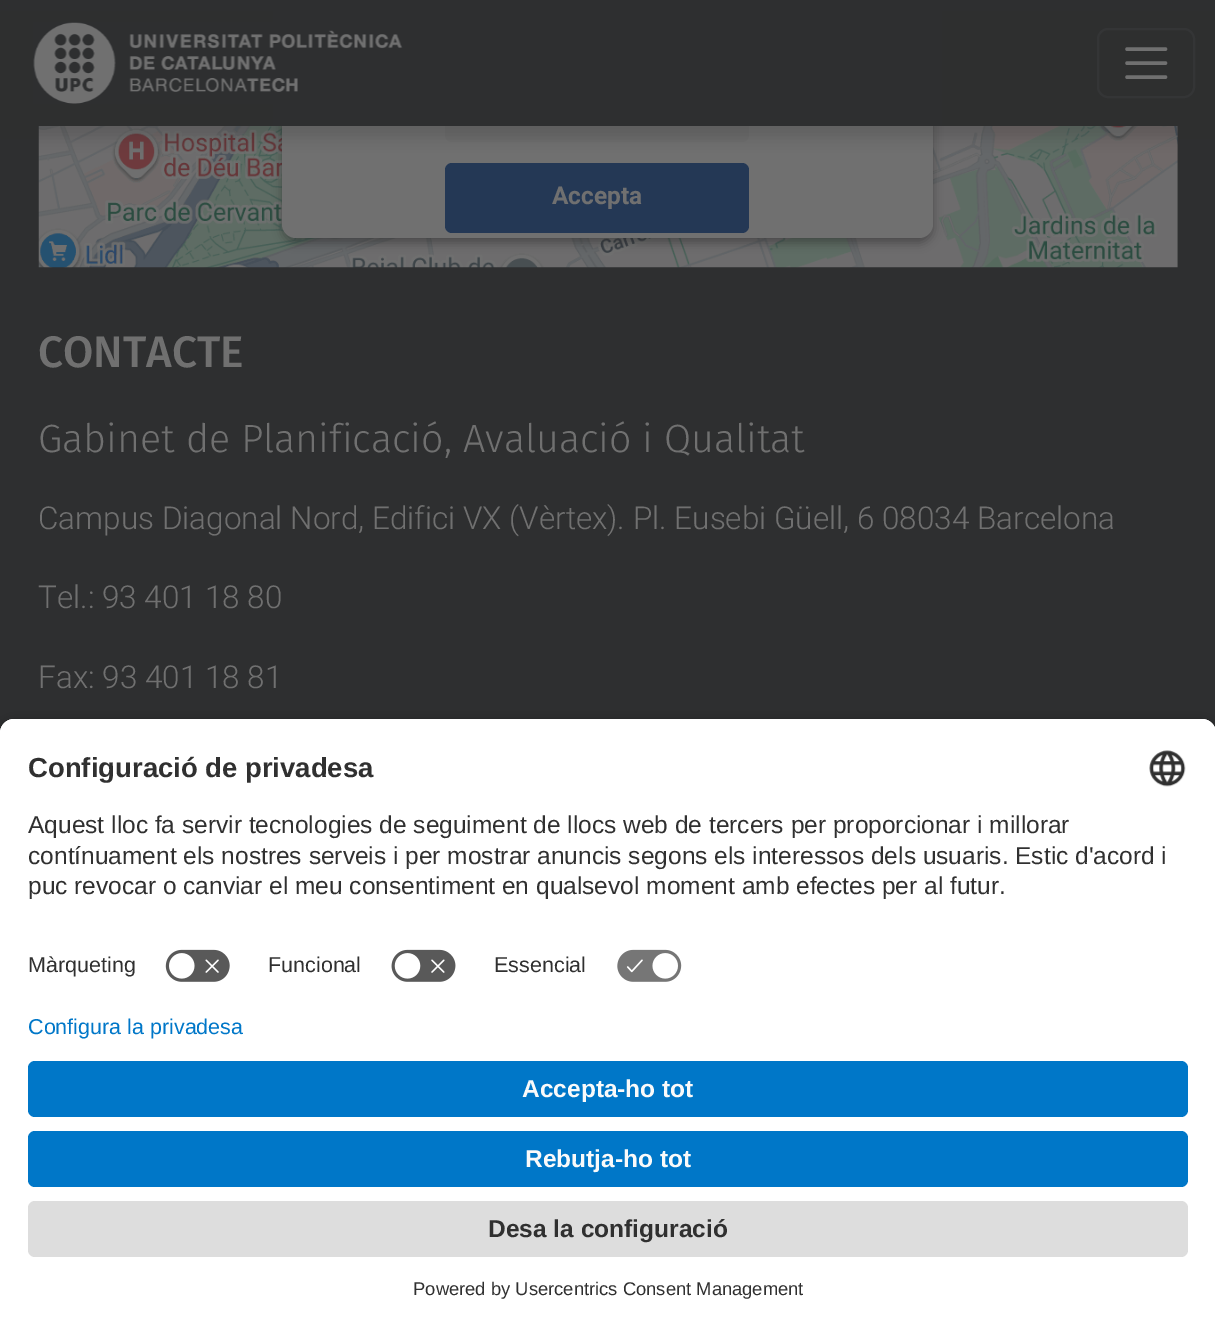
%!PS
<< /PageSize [1215 1326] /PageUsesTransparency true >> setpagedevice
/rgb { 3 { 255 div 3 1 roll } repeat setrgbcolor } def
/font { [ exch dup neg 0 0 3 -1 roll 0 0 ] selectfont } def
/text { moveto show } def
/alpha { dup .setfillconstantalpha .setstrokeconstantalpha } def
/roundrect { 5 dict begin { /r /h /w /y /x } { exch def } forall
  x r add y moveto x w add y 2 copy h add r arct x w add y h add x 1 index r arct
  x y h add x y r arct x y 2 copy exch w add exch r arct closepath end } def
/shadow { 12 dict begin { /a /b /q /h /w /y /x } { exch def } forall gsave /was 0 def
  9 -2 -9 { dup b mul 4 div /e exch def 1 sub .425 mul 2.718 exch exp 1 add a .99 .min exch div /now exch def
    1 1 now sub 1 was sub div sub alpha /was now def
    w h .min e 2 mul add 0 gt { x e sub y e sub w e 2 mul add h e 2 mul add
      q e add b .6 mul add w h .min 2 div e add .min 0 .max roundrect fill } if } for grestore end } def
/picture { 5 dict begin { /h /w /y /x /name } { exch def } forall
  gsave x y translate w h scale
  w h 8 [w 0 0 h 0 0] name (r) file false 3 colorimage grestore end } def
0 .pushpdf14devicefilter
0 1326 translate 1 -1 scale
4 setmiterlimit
46 47 48 rgb
0 0 1215 1326 rectfill
(img_02.rgb) 38 126 1140 142 picture
36 36 36 rgb
282 -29 651 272 14 5 0.5 shadow
112 112 112 rgb
282 -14 651 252 14 roundrect fill
109 109 109 rgb
445 72 304 70 7 roundrect fill
36 36 36 rgb
0 12 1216 126 0 7 0.2 shadow
46 47 48 rgb
273 0 669 126 rectfill
(img_01.rgb) 33 22 370 82 picture
52 53 54 rgb
2 setlinewidth
1098 29 96 68 10 roundrect stroke
112 112 112 rgb
3.5 setlinewidth
1 setlinecap
1127 49 moveto 38.5 0 rlineto 1127 63 moveto 38.5 0 rlineto 1127 77 moveto 38.5 0 rlineto stroke
36 56 85 rgb
445 163 304 70 7 roundrect fill
0 0 0 rgb
0 725 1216 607 14 6 0.8 shadow
255 255 255 rgb
14 719 moveto 1188 0 rlineto 7.5 0 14 6.5 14 14 rcurveto 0 282 rlineto -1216 0 rlineto 0 -282 rlineto 0 -7.5 6.5 -14 14 -14 rcurveto closepath fill
14 719 moveto 1188 0 rlineto 7.5 0 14 6.5 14 14 rcurveto 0 205 rlineto -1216 0 rlineto 0 -205 rlineto 0 -7.5 6.5 -14 14 -14 rcurveto closepath fill
(img_03.rgb) 1149 750 37 37 picture
(img_04.rgb) 165 949 65 33 picture
(img_05.rgb) 391 949 65 33 picture
(img_06.rgb) 617 949 65 33 picture
0 1015 1215 311 rectfill
0 119 200 rgb
28 1061 1160 56 7 roundrect fill
28 1131 1160 56 7 roundrect fill
221 221 221 rgb
28 1201 1160 56 7 roundrect fill
/Roboto-Bold 24.5 font
112 112 112 rgb
(Accepta) 552 204 text
/FiraSans-Medium 44 font
(CONTACTE) 38 367 text
/FiraSans-Light 39.4 font
(Gabinet de Planificació, Avaluació i Qualitat) 38 452 text
/Roboto-Light 31.5 font
(Campus Diagonal Nord, Edifici VX \(Vèrtex\). Pl. Eusebi Güell, 6 08034 Barcelona) 38 529 text
(Tel.: 93 401 18 80) 38 608 text
(Fax: 93 401 18 81) 38 688 text
/LiberationSans-Bold 27.5 font
48 48 48 rgb
(Configuració de privadesa) 28 777 text
/LiberationSans-Regular 24.5 font
(Aquest lloc fa servir tecnologies de seguiment de llocs web de tercers per proporcionar i millorar) 28 833 text
(contínuament els nostres serveis i per mostrar anuncis segons els interessos dels usuaris. Estic d'acord i) 28 864 text
(puc revocar o canviar el meu consentiment en qualsevol moment amb efectes per al futur.) 28 894 text
/LiberationSans-Regular 21.5 font
(Màrqueting) 28 972 text
(Funcional) 268 972 text
(Essencial) 494 972 text
0 119 200 rgb
(Configura la privadesa) 28 1034 text
/LiberationSans-Bold 24.5 font
250 250 250 rgb
(Accepta-ho tot) 522 1097 text
(Rebutja-ho tot) 525 1167 text
48 48 48 rgb
(Desa la configuració) 488 1237 text
/LiberationSans-Regular 18.4 font
(Powered by Usercentrics Consent Management) 413 1295 text
.poppdf14devicefilter showpage
